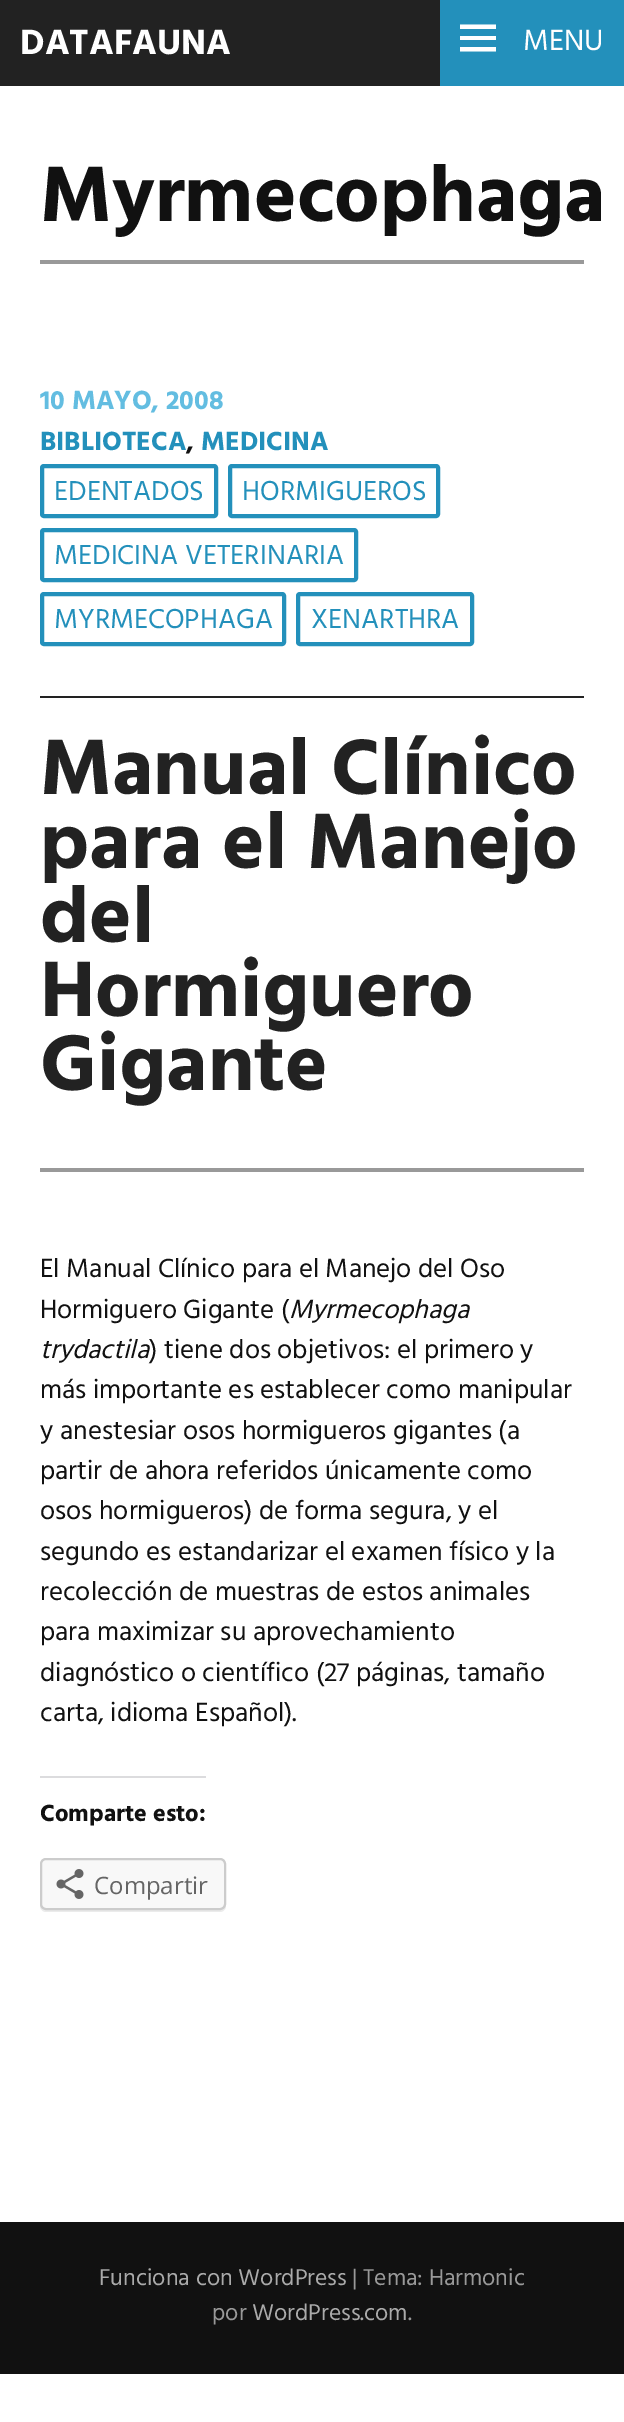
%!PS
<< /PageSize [624 2422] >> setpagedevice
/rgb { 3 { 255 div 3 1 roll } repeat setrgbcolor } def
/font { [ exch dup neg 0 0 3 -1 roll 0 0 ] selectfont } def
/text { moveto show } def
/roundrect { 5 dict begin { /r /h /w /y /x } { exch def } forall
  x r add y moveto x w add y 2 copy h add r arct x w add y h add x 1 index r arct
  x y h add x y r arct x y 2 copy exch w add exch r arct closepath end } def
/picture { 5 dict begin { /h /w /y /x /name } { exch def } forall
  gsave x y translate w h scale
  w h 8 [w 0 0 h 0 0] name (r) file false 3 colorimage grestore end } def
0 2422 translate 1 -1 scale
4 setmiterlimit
255 255 255 rgb
0 0 624 2422 rectfill
34 34 34 rgb
0 0 440 86 rectfill
35 144 187 rgb
440 0 184 86 rectfill
255 255 255 rgb
460 51.5 moveto 0 -4.5 rlineto 36 0 rlineto 0 4.5 rlineto closepath 460 24.5 moveto 36 0 rlineto 0 4.5 rlineto -36 0 rlineto closepath 460 40 moveto 0 -4 rlineto 36 0 rlineto 0 4 rlineto closepath fill
153 153 153 rgb
40 260 544 4 rectfill
34 34 34 rgb
40 696 544 2 rectfill
35 144 187 rgb
4 setlinewidth
42 466 174 50 2 roundrect stroke
230 466 208 50 2 roundrect stroke
42 530 314 50 2 roundrect stroke
42 594 242 50 2 roundrect stroke
298 594 174 50 2 roundrect stroke
153 153 153 rgb
40 1168 544 4 rectfill
220 220 222 rgb
40 1776 166 2 rectfill
235 235 235 rgb
40 1904 moveto 0 2 rlineto 0 3 3 6 6 6 rcurveto 174 0 rlineto 3 0 6 -3 6 -6 rcurveto 0 -2 rlineto 0 3 -3 6 -6 6 rcurveto -174 0 rlineto -3 0 -6 -3 -6 -6 rcurveto closepath fill
248 248 248 rgb
41 1859 184 50 5 roundrect gsave fill grestore
204 204 204 rgb
2 setlinewidth
stroke
(img_01.rgb) 56 1869 28 30 picture
17 17 17 rgb
0 2222 624 152 rectfill
/Hind-Bold 36 font
255 255 255 rgb
(DATAFAUNA) 20 54 text
/Hind-Regular 30 font
(MENU) 523 50 text
/Hind-Bold 80.5 font
17 17 17 rgb
(Myrmecophaga) 40 221 text
/Hind-Bold 26.9 font
99 189 225 rgb
(10 MAYO, 2008) 40 409 text
35 144 187 rgb
(BIBLIOTECA) 40 450 text
17 17 17 rgb
(,) 186 450 text
35 144 187 rgb
(MEDICINA) 201 450 text
/Hind-Regular 28 font
(EDENTADOS) 54 500 text
(HORMIGUEROS) 242 500 text
(MEDICINA VETERINARIA) 54 564 text
(MYRMECOPHAGA) 54 628 text
(XENARTHRA) 311 628 text
/Hind-Bold 80.5 font
34 34 34 rgb
(Manual Clínico) 40 794 text
(para el Manejo) 40 868 text
(del) 40 942 text
(Hormiguero) 40 1016 text
(Gigante) 40 1090 text
/Hind-Regular 26.9 font
17 17 17 rgb
(El Manual Clínico para el Manejo del Oso) 40 1277 text
(Hormiguero Gigante \() 40 1318 text
/Hind-Italic 26.9 font
(Myrmecophaga) 289 1318 text
(trydactila) 40 1358 text
/Hind-Regular 26.9 font
(\) tiene dos objetivos: el primero y) 149 1358 text
(más importante es establecer como manipular) 40 1398 text
(y anestesiar osos hormigueros gigantes \(a) 40 1439 text
(partir de ahora referidos únicamente como) 40 1479 text
(osos hormigueros\) de forma segura, y el) 40 1519 text
(segundo es estandarizar el examen físico y la) 40 1560 text
(recolección de muestras de estos animales) 40 1600 text
(para maximizar su aprovechamiento) 40 1640 text
(diagnóstico o científico \(27 páginas, tamaño) 40 1681 text
(carta, idioma Español\).) 40 1721 text
/Hind-Bold 24 font
(Comparte esto:) 40 1821 text
/OpenSans-Regular 24 font
101 101 101 rgb
(Compartir) 94 1894 text
/Hind-Regular 23.5 font
170 170 170 rgb
(Funciona con WordPress) 99 2285 text
153 153 153 rgb
(| Tema: Harmonic) 352 2285 text
(por) 212 2320 text
170 170 170 rgb
(WordPress.com) 252 2320 text
153 153 153 rgb
(.) 408 2320 text
showpage
